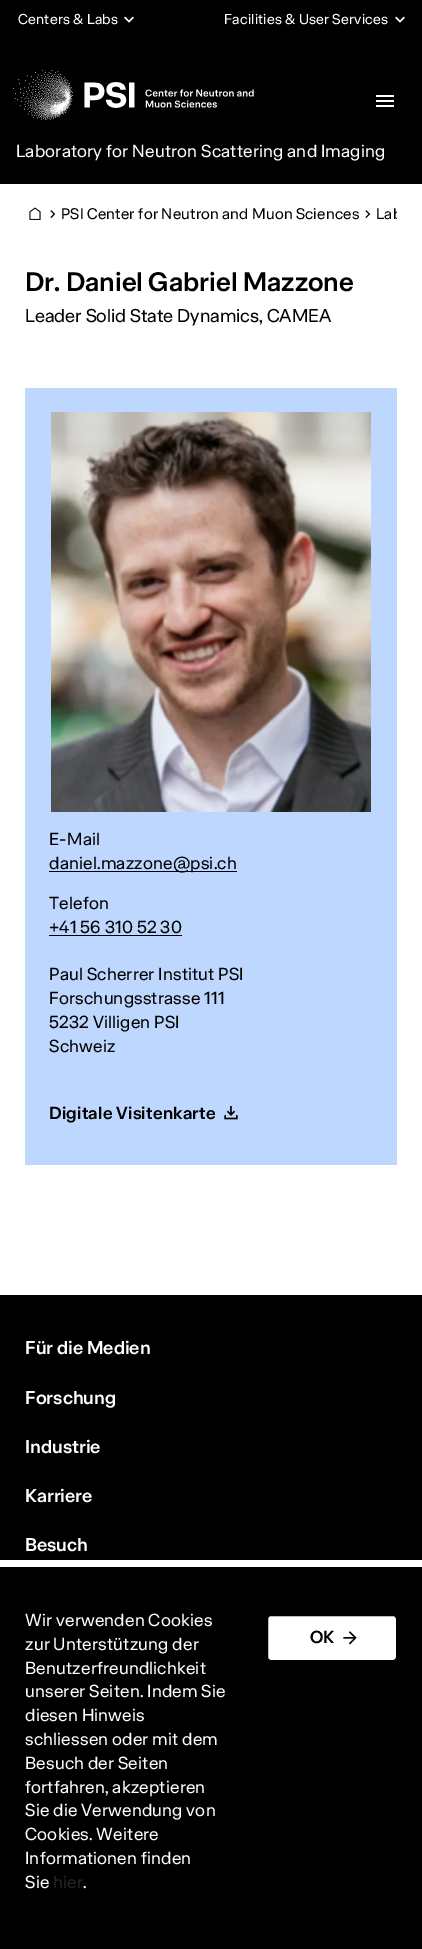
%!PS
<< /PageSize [422 1949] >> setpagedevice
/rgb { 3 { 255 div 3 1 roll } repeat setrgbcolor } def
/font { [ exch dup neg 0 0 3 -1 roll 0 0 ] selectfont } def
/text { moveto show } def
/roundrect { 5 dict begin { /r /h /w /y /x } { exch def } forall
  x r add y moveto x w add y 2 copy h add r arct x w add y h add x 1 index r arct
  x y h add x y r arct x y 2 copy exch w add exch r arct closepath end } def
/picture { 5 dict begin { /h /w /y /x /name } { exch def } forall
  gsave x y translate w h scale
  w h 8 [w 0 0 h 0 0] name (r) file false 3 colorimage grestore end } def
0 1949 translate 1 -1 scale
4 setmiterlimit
255 255 255 rgb
0 0 422 1949 rectfill
0 0 0 rgb
0 0 422 184 rectfill
(img_01.rgb) 124 16 10 7 picture
(img_01.rgb) 395 16 10 7 picture
(img_02.rgb) 13 70 241 50 picture
(img_03.rgb) 376 95 18 12 picture
(img_04.rgb) 29 207 12 13 picture
(img_05.rgb) 50 210 6 8 picture
(img_05.rgb) 365 210 6 8 picture
190 215 255 rgb
25 388 372 777 rectfill
(img_06.rgb) 51 412 320 400 picture
0 0 0 rgb
49 871 188 1 rectfill
49 935 133 1 rectfill
(img_07.rgb) 224 1106 14 14 picture
0 1295 422 265 rectfill
0 1567 422 382 rectfill
255 255 255 rgb
267.5 1615.5 129 45 3.5 roundrect gsave fill grestore
0 0 0 rgb
stroke
(img_08.rgb) 343 1631 14 14 picture
/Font-Regular 14 font
255 255 255 rgb
18 24 moveto 0.2 0 (Centers & Labs) ashow
224 24 moveto 0.2 0 (Facilities & User Services) ashow
/Font-Regular 17 font
16 157 moveto 0.2 0 (Laboratory for Neutron Scattering and Imaging) ashow
/Font-Regular 15 font
0 0 0 rgb
61 219 moveto 0.2 0 (PSI Center for Neutron and Muon Sciences) ashow
gsave
25 204 372 20 rectclip
376 219 moveto 0.2 0 (Lab) ashow
grestore
/Font-SemiBold 26 font
(Dr. Daniel Gabriel Mazzone) 25 291 text
/Font-Regular 18 font
(Leader Solid State Dynamics, CAMEA) 25 322 text
/Font-Regular 17 font
49 845 moveto 0.2 0 (E-Mail) ashow
49 869 moveto 0.2 0 (daniel.mazzone@psi.ch) ashow
49 909 moveto 0.2 0 (Telefon) ashow
49 933 moveto 0.2 0 (+41 56 310 52 30) ashow
49 980 moveto 0.2 0 (Paul Scherrer Institut PSI) ashow
49 1004 moveto 0.2 0 (Forschungsstrasse 111) ashow
49 1028 moveto 0.2 0 (5232 Villigen PSI) ashow
49 1052 moveto 0.2 0 (Schweiz) ashow
/Font-SemiBold 17 font
49 1119 moveto 0.2 0 (Digitale Visitenkarte) ashow
/Font-SemiBold 18 font
255 255 255 rgb
(Für die Medien) 25 1354 text
(Forschung) 25 1404 text
(Industrie) 25 1453 text
(Karriere) 25 1502 text
(Besuch) 25 1551 text
/Font-Regular 17 font
25 1626 moveto 0.2 0 (Wir verwenden Cookies) ashow
25 1650 moveto 0.2 0 (zur Unterstützung der) ashow
25 1674 moveto 0.2 0 (Benutzerfreundlichkeit) ashow
25 1697 moveto 0.2 0 (unserer Seiten. Indem Sie) ashow
25 1721 moveto 0.2 0 (diesen Hinweis) ashow
25 1745 moveto 0.2 0 (schliessen oder mit dem) ashow
25 1769 moveto 0.2 0 (Besuch der Seiten) ashow
25 1793 moveto 0.2 0 (fortfahren, akzeptieren) ashow
25 1816 moveto 0.2 0 (Sie die Verwendung von) ashow
25 1840 moveto 0.2 0 (Cookies. Weitere) ashow
25 1864 moveto 0.2 0 (Informationen finden) ashow
25 1888 moveto 0.2 0 (Sie) ashow
38 38 38 rgb
53 1888 moveto 0.2 0 (hier) ashow
255 255 255 rgb
83 1888 moveto 0.2 0 (.) ashow
/Font-SemiBold 17 font
0 0 0 rgb
(OK) 310 1643 text
showpage
